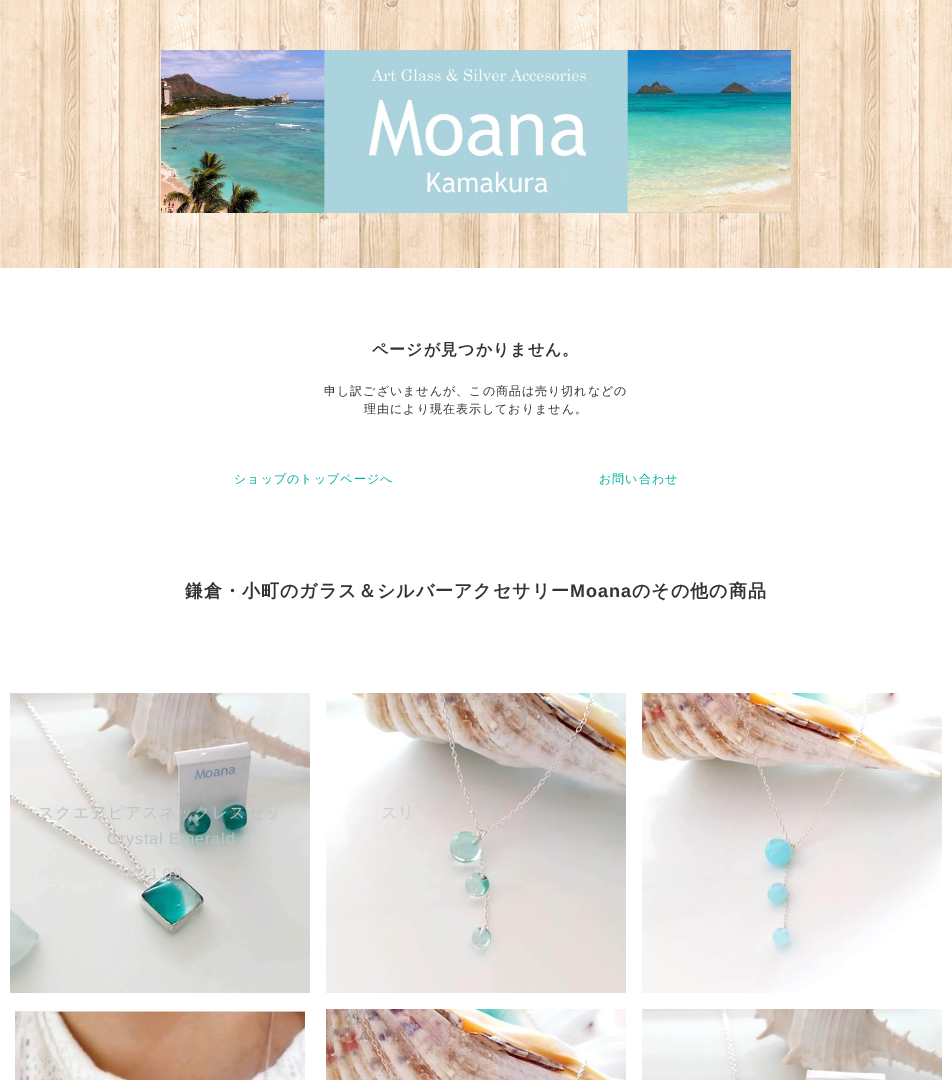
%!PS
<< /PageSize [952 1080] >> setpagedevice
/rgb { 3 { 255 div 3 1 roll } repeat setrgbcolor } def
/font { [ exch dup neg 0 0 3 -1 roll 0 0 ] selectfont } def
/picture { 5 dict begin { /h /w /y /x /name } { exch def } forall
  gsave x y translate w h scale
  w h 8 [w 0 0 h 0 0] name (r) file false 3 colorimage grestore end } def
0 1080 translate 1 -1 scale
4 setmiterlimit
255 255 255 rgb
0 0 952 1080 rectfill
(img_01.rgb) 0 0 952 268 picture
(img_02.rgb) 161 50 630 163 picture
(img_03.rgb) 10 693 300 300 picture
(img_04.rgb) 326 693 300 300 picture
(img_05.rgb) 642 693 300 300 picture
(img_06.rgb) 15 1009 290 71 picture
(img_07.rgb) 326 1009 300 71 picture
(img_08.rgb) 642 1009 300 71 picture
/WenQuanYiZenHei-Bold 16 font
51 51 51 rgb
372 355 moveto 1 0 (ページが見つかりません。) ashow
/WenQuanYiZenHei-Medium 12 font
324 395 moveto 1 0 (申し訳ございませんが、この商品は売り切れなどの) ashow
364 413 moveto 1 0 (理由により現在表示しておりません。) ashow
0 174 159 rgb
234 483 moveto 1 0 (ショップのトップページへ) ashow
599 483 moveto 1 0 (お問い合わせ) ashow
/WenQuanYiZenHei-Bold 18 font
51 51 51 rgb
185 597 moveto 1 0 (鎌倉・小町のガラス＆シルバーアクセサリー) ashow
/LiberationSans-Bold 18 font
570 597 moveto 1 0 (Moana) ashow
/WenQuanYiZenHei-Bold 18 font
632 597 moveto 1 0 (のその他の商品) ashow
/WenQuanYiZenHei-Medium 16 font
187 198 195 rgb
38 818 moveto 1 0 (スクエアピアスネックレスセッ) ashow
/LiberationSans-Regular 16 font
107 844 moveto 1 0 (Crystal Emerald) ashow
204 206 203 rgb
128 879 moveto 1 0 (¥24,09) ashow
/WenQuanYiZenHei-Medium 16 font
210 203 201 rgb
381 818 moveto 1 0 (スリ) ashow
showpage
